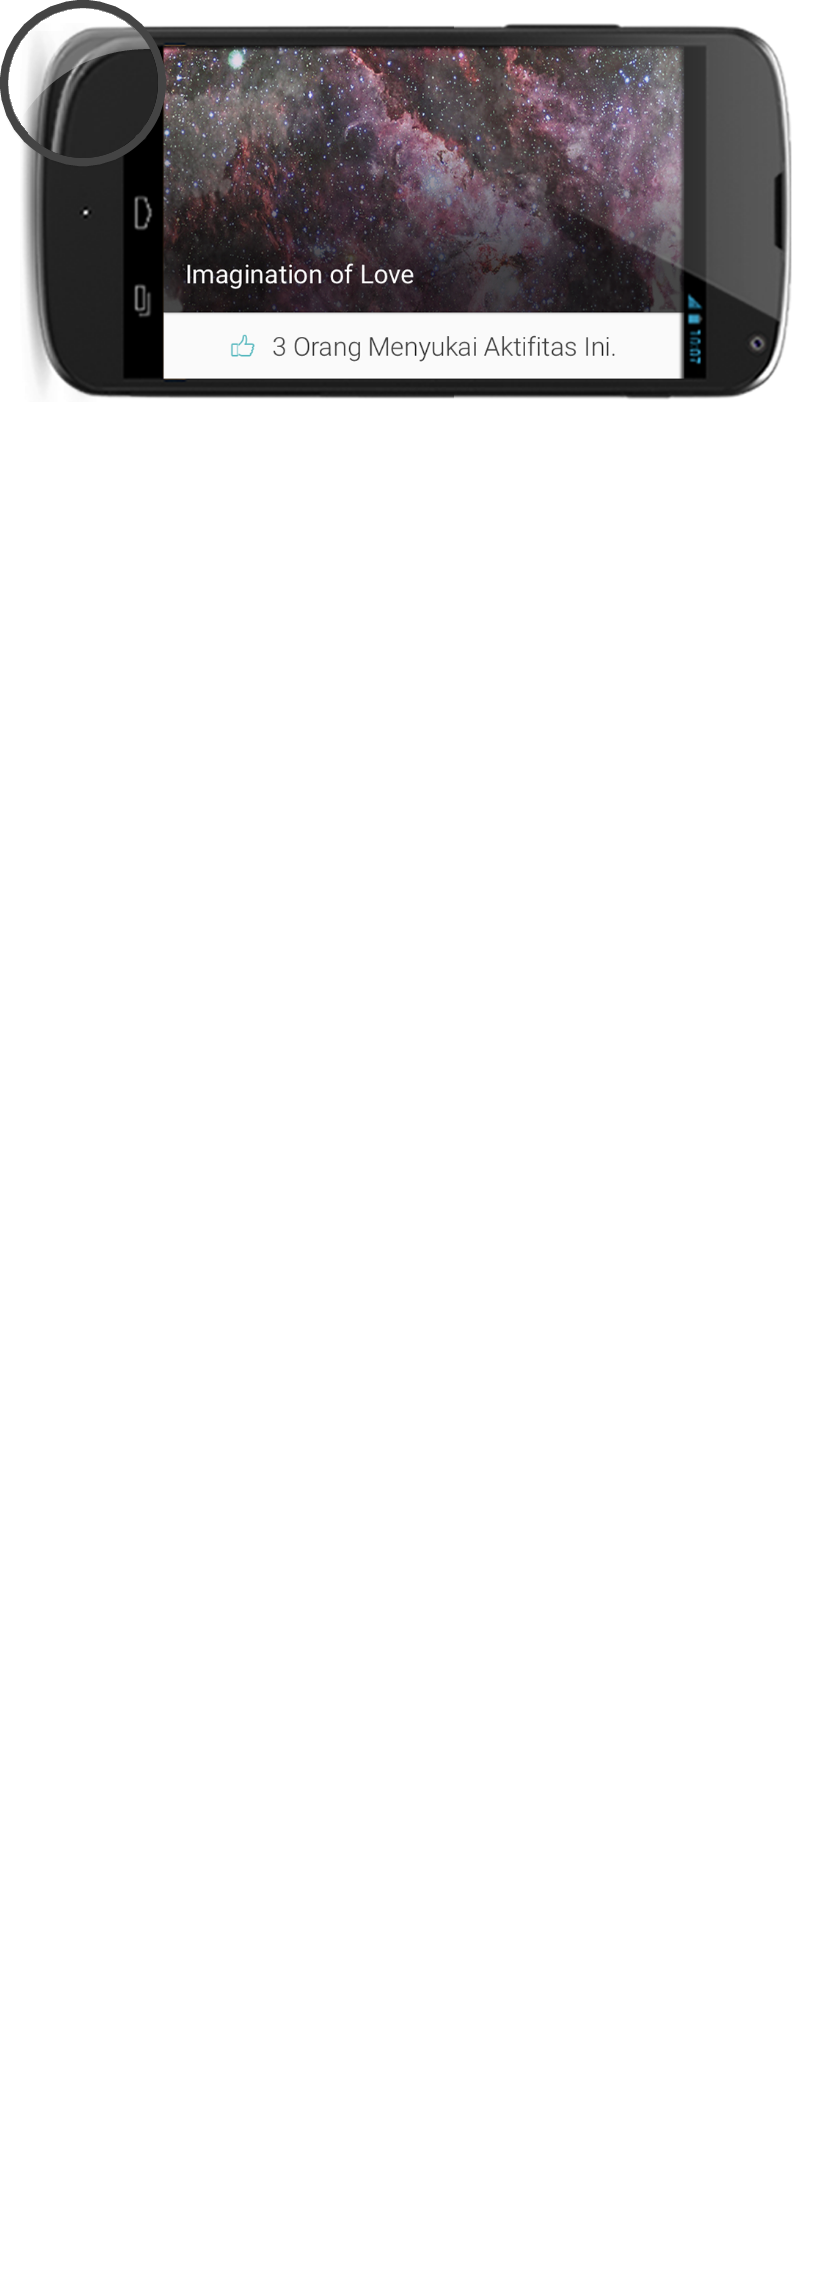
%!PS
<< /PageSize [828 2275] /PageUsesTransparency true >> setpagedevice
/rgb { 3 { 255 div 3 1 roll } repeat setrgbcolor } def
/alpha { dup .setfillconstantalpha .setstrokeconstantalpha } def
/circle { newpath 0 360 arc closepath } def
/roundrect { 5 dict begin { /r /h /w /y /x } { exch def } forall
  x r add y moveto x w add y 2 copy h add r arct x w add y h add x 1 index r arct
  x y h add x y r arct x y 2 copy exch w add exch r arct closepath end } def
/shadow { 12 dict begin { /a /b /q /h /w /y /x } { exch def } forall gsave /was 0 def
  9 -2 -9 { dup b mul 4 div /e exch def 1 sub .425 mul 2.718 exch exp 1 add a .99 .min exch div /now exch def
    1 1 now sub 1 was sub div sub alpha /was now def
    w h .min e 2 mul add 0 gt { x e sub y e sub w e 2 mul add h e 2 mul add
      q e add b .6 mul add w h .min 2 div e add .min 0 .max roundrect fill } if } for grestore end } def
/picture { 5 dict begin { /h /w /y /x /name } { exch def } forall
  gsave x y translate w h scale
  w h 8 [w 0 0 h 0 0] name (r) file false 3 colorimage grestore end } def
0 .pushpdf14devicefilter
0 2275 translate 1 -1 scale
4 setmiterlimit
255 255 255 rgb
0 0 828 2275 rectfill
(img_02.rgb) 20 23 772 379 picture
gsave
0 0 moveto 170 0 rlineto 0 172 rlineto -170 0 rlineto closepath 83 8 moveto 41.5 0 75 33.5 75 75 rcurveto 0 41.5 -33.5 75 -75 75 rcurveto -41.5 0 -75 -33.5 -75 -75 rcurveto 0 -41.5 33.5 -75 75 -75 rcurveto closepath eoclip newpath
0 0 0 rgb
5 7 156 156 78 2.5 0.5 shadow
grestore
68 68 68 rgb
8 setlinewidth
83 83 79 circle stroke
(img_01.rgb) 28 31 130 127 picture
0.35 alpha
255 255 255 rgb
146 49 moveto 4 0 rlineto -12 -24 -38 -41 -67 -41 rcurveto -41 0 -75 34 -75 75 rcurveto 0 14 4 28 11 39 rcurveto 26 -44 73 -73 127 -73 rcurveto closepath fill
.poppdf14devicefilter showpage
